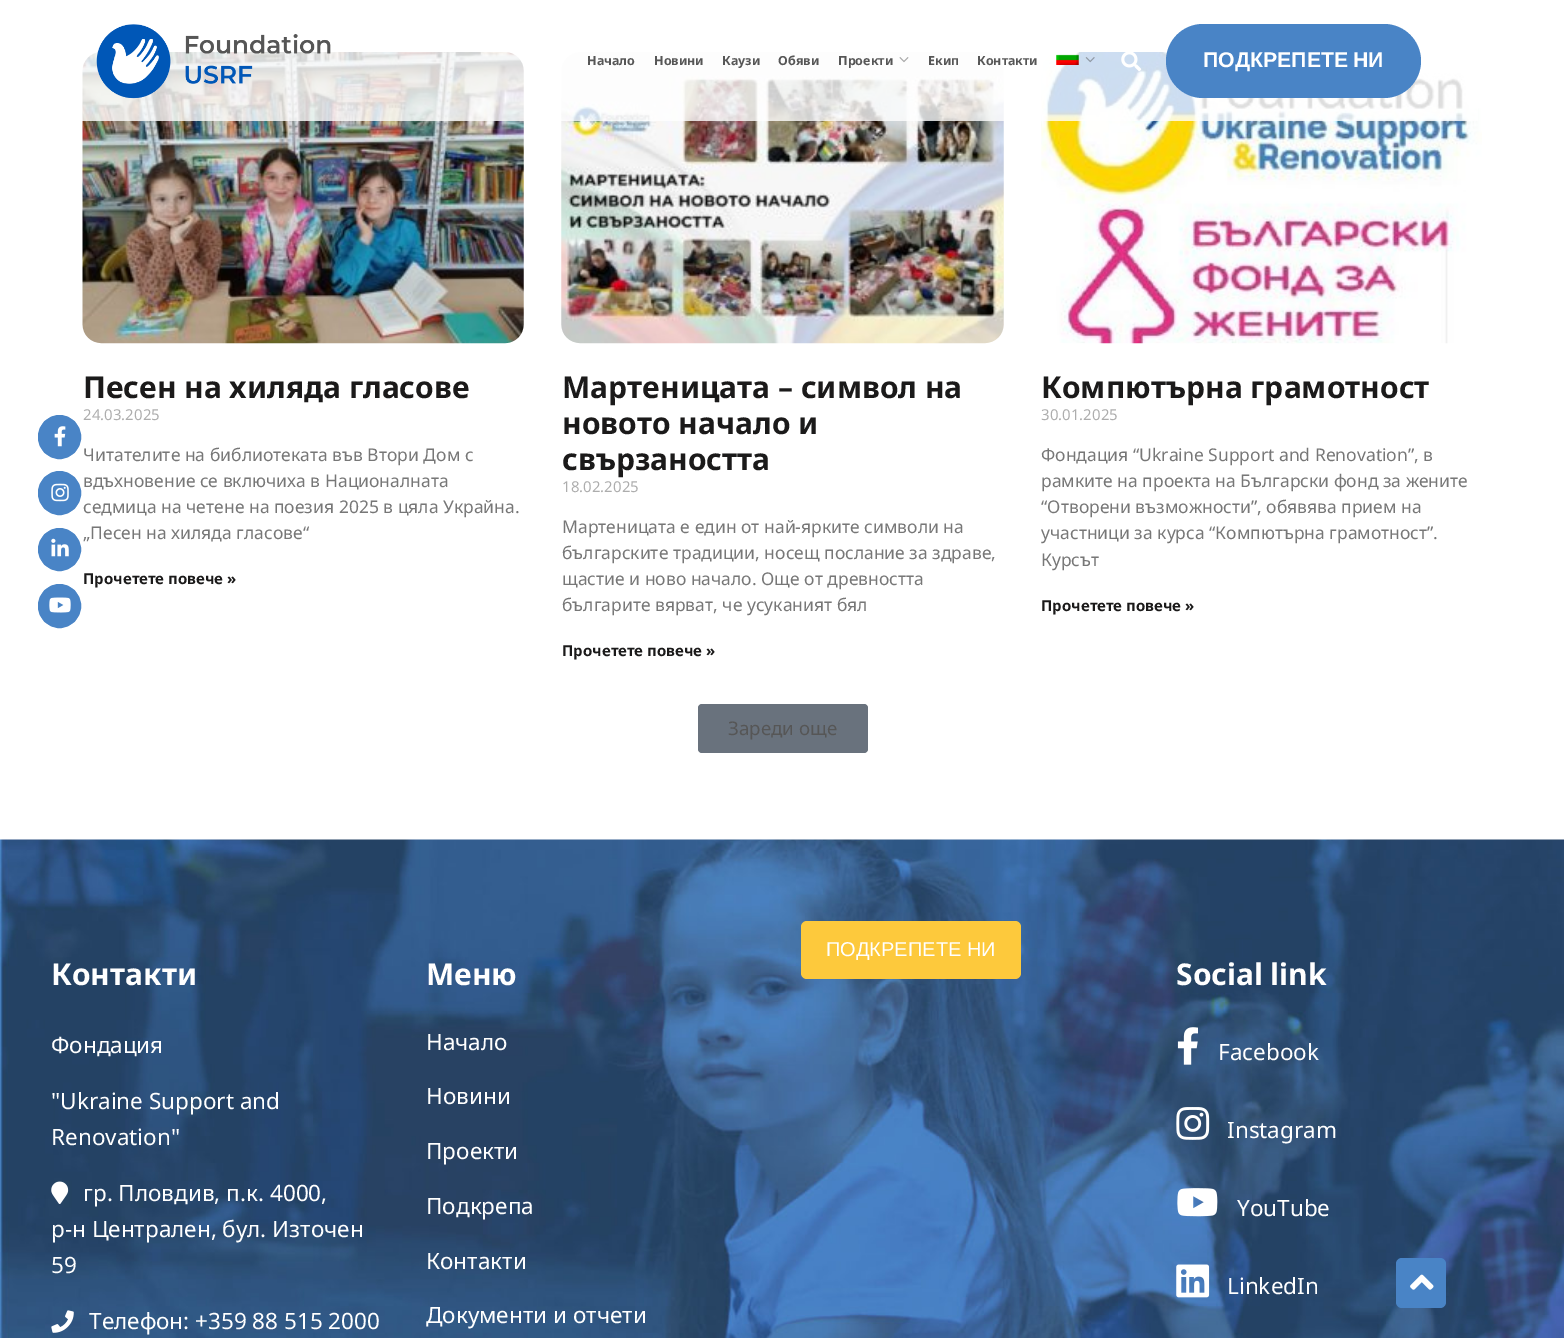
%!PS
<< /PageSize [1564 1338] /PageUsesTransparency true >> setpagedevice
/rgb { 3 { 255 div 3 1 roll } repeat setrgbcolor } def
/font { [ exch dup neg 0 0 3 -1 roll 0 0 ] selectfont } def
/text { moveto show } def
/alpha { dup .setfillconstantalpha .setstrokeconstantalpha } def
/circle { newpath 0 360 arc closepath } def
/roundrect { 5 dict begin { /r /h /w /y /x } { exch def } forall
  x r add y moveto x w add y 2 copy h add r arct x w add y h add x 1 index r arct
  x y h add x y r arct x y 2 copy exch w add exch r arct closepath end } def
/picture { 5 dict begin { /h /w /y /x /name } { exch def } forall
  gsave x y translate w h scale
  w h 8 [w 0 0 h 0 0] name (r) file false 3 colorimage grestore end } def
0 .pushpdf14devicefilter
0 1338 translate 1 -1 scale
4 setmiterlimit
255 255 255 rgb
0 0 1564 1338 rectfill
(img_06.rgb) 82 52 442 292 picture
(img_07.rgb) 561 52 443 292 picture
(img_08.rgb) 1041 52 441 292 picture
0.8 alpha
82 52 1396 69 rectfill
1 alpha
(img_01.rgb) 96 24 235 75 picture
(img_02.rgb) 899 57 10 6 picture
(img_03.rgb) 1056 52 23 13 picture
(img_04.rgb) 1085 57 10 6 picture
(img_05.rgb) 1121 52 21 19 picture
73 132 198 rgb
1166 24 255 74 37 roundrect fill
105 114 125 rgb
698 704 170 49 4 roundrect fill
(img_09.rgb) 0 839 1564 499 picture
253 201 60 rgb
801 921 220 58 6 roundrect fill
(img_10.rgb) 51 1181 18 23 picture
(img_11.rgb) 51 1310 23 23 picture
(img_12.rgb) 1177 1027 21 38 picture
(img_13.rgb) 1176 1107 34 33 picture
(img_14.rgb) 1177 1188 41 29 picture
(img_15.rgb) 1176 1264 34 34 picture
73 132 198 rgb
38.5 415.5 42 43 21 roundrect gsave fill grestore
stroke
(img_16.rgb) 54 426 12 21 picture
38.5 471.5 42 43 21 roundrect gsave fill grestore
stroke
(img_17.rgb) 51 483 18 19 picture
59.5 549.5 21 circle gsave fill grestore
stroke
(img_18.rgb) 51 538 18 19 picture
38.5 584.5 42 43 21 roundrect gsave fill grestore
stroke
(img_19.rgb) 49 597 22 16 picture
1396 1258 50 50 6 roundrect fill
(img_20.rgb) 1410 1274 24 16 picture
/NotoSans-Bold 12.5 font
86 86 86 rgb
(Начало) 587 65 text
(Новини) 654 65 text
(Каузи) 722 65 text
(Обяви) 778 65 text
(Проекти) 838 65 text
(Екип) 928 65 text
(Контакти) 977 65 text
/LiberationSans-Bold 21.25 font
255 255 255 rgb
1203 67 moveto -1 0 32 (ПОДКРЕПЕТЕ НИ) widthshow
/NotoSans-Bold 30 font
27 26 26 rgb
(Песен на хиляда гласове) 83 398 text
/NotoSans-Regular 15 font
173 173 173 rgb
(24.03.2025) 83 420 text
/NotoSans-Regular 17.5 font
119 119 119 rgb
(Читателите на библиотеката във Втори Дом с) 83 461 text
(вдъхновение се включиха в Националната) 83 487 text
(седмица на четене на поезия 2025 в цяла Украйна.) 83 513 text
(„Песен на хиляда гласове“) 83 539 text
/NotoSans-Bold 15 font
27 26 26 rgb
(Прочетете повече ») 83 584 text
/NotoSans-Bold 30 font
(Мартеницата – символ на) 562 398 text
(новото начало и) 562 434 text
(свързаността) 562 470 text
/NotoSans-Regular 15 font
173 173 173 rgb
(18.02.2025) 562 492 text
/NotoSans-Regular 17.5 font
119 119 119 rgb
(Мартеницата е един от най-ярките символи на) 562 533 text
(българските традиции, носещ послание за здраве,) 562 559 text
(щастие и ново начало. Още от древността) 562 585 text
(българите вярват, че усуканият бял) 562 611 text
/NotoSans-Bold 15 font
27 26 26 rgb
(Прочетете повече ») 562 656 text
/NotoSans-Bold 30 font
(Компютърна грамотност) 1041 398 text
/NotoSans-Regular 15 font
173 173 173 rgb
(30.01.2025) 1041 420 text
/NotoSans-Regular 17.5 font
119 119 119 rgb
(Фондация “Ukraine Support and Renovation”, в) 1041 461 text
(рамките на проекта на Български фонд за жените) 1041 487 text
(“Отворени възможности”, обявява прием на) 1041 513 text
(участници за курса “Компютърна грамотност”.) 1041 539 text
(Курсът) 1041 566 text
/NotoSans-Bold 15 font
27 26 26 rgb
(Прочетете повече ») 1041 611 text
/NotoSans-Regular 18.75 font
86 86 86 rgb
(Зареди още) 728 735 text
/LiberationSans-Regular 20 font
255 255 255 rgb
(ПОДКРЕПЕТЕ НИ) 826 956 text
/NotoSans-Bold 30 font
(Контакти) 51 985 text
/NotoSans-Regular 22.5 font
(Фондация) 51 1053 text
("Ukraine Support and) 51 1109 text
(Renovation") 51 1145 text
(гр. Пловдив, п.к. 4000,) 83 1201 text
(р-н Централен, бул. Източен) 51 1237 text
(59) 51 1273 text
(Телефон: +359 88 515 2000) 89 1329 text
/NotoSans-Bold 30 font
(Меню) 426 985 text
/NotoSans-Regular 22.5 font
(Начало) 426 1050 text
(Новини) 426 1104 text
(Проекти) 426 1159 text
(Подкрепа) 426 1214 text
(Контакти) 426 1269 text
(Документи и отчети) 426 1323 text
/NotoSans-Bold 30 font
(Social link) 1176 985 text
/NotoSans-Regular 22.5 font
(Facebook) 1218 1060 text
(Instagram) 1227 1138 text
(YouTube) 1237 1216 text
(LinkedIn) 1227 1294 text
.poppdf14devicefilter showpage
